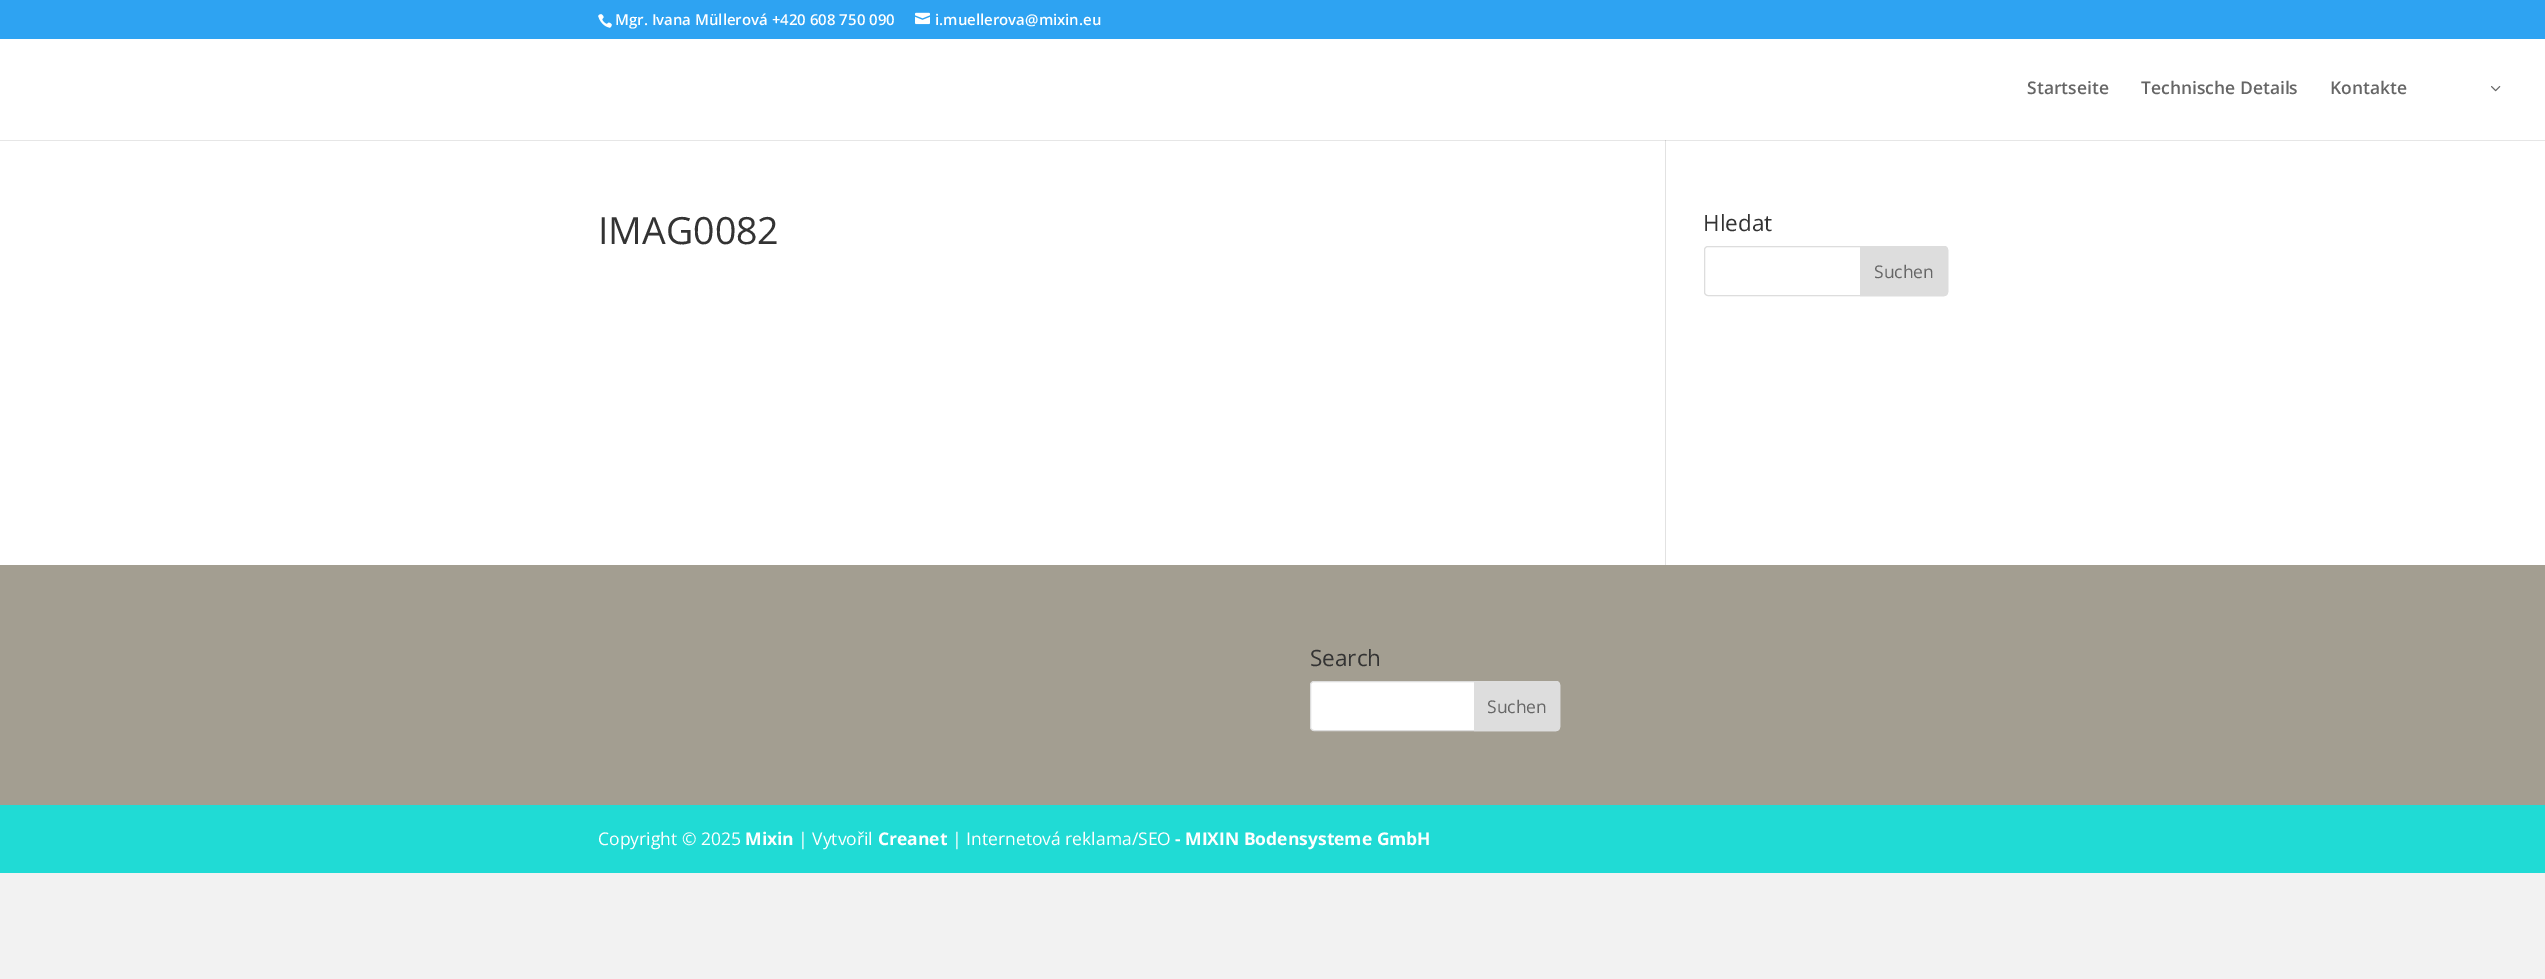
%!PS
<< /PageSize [2545 979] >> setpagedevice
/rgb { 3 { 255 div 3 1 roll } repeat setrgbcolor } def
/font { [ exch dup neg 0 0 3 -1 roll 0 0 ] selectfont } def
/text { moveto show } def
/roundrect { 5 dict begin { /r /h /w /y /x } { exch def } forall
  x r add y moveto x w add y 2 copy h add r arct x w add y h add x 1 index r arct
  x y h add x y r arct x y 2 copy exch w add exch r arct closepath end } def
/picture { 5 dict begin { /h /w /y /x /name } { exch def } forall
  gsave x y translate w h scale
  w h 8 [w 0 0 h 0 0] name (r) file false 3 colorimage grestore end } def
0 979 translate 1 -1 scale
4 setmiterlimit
242 242 242 rgb
0 0 2545 979 rectfill
46 163 242 rgb
0 0 2545 39 rectfill
(img_01.rgb) 598 14 14 14 picture
(img_02.rgb) 915 12 15 13 picture
255 255 255 rgb
0 141 2545 424 rectfill
230 230 230 rgb
0 140 2545 1 rectfill
226 226 226 rgb
1665 139 1 426 rectfill
255 255 255 rgb
0 39 2545 101 rectfill
(img_03.rgb) 2491 86 10 6 picture
203 203 203 rgb
1665 140 1 1 rectfill
221 221 221 rgb
1704.5 246.5 243 49 3.5 roundrect stroke
1860.5 246.5 moveto 83.5 0 rlineto 2 0 3.5 1.5 3.5 3.5 rcurveto 0 42 rlineto 0 2 -1.5 3.5 -3.5 3.5 rcurveto -83.5 0 rlineto closepath gsave fill grestore
stroke
163 158 145 rgb
0 565 2545 240 rectfill
255 255 255 rgb
1310.5 681.5 249 49 3.5 roundrect gsave fill grestore
221 221 221 rgb
stroke
1474.5 681.5 moveto 81.5 0 rlineto 2 0 3.5 1.5 3.5 3.5 rcurveto 0 42 rlineto 0 2 -1.5 3.5 -3.5 3.5 rcurveto -81.5 0 rlineto closepath gsave fill grestore
stroke
32 219 213 rgb
0 805 2545 68 rectfill
/OpenSans-SemiBold 15 font
255 255 255 rgb
(Mgr. Ivana Müllerová +420 608 750 090) 615 25 text
(i.muellerova@mixin.eu) 935 25 text
/OpenSans-SemiBold 17.5 font
102 102 102 rgb
(Startseite) 2027 94 text
(Technische Details) 2141 94 text
(Kontakte) 2330 94 text
/OpenSans-Regular 37.5 font
51 51 51 rgb
(IMAG0082) 598 244 text
/OpenSans-Regular 22.5 font
(Hledat) 1703 231 text
/OpenSans-Regular 17.5 font
102 102 102 rgb
(Suchen) 1874 278 text
/OpenSans-Regular 22.5 font
51 51 51 rgb
(Search) 1310 666 text
/OpenSans-Regular 17.5 font
102 102 102 rgb
(Suchen) 1487 713 text
255 255 255 rgb
(Copyright © 2025) 598 845 text
/OpenSans-Bold 17.5 font
(Mixin) 745 845 text
/OpenSans-Regular 17.5 font
(| Vytvořil) 798 845 text
/OpenSans-Bold 17.5 font
(Creanet) 878 845 text
/OpenSans-Regular 17.5 font
(| Internetová reklama/SEO) 952 845 text
/OpenSans-Bold 17.5 font
(- MIXIN Bodensysteme GmbH) 1175 845 text
showpage
